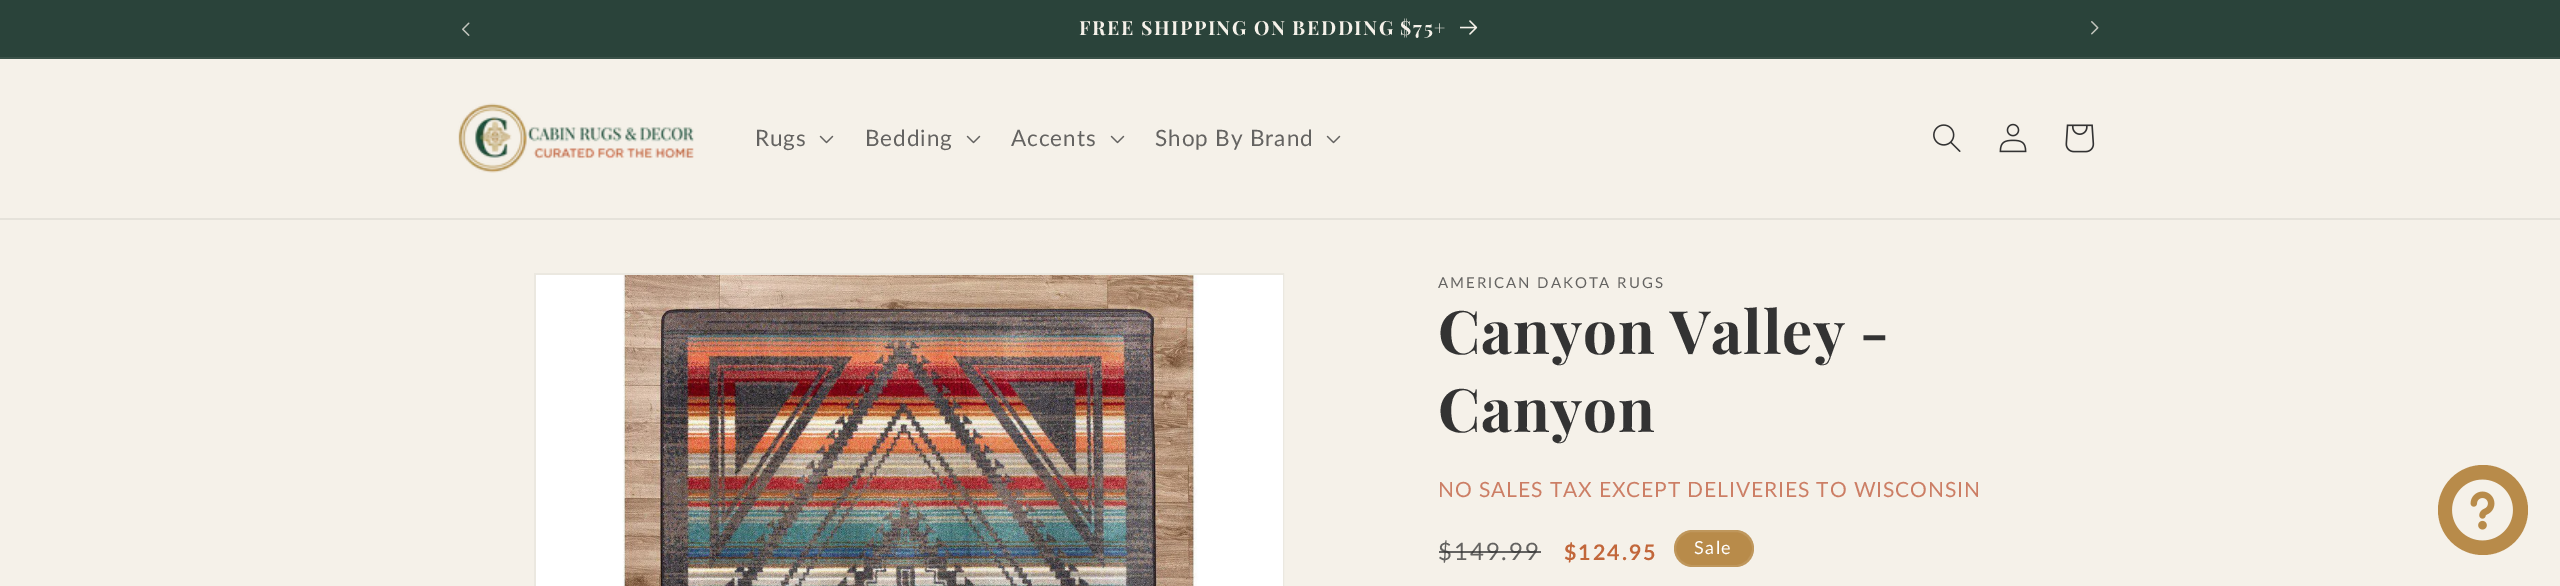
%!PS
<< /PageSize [2560 586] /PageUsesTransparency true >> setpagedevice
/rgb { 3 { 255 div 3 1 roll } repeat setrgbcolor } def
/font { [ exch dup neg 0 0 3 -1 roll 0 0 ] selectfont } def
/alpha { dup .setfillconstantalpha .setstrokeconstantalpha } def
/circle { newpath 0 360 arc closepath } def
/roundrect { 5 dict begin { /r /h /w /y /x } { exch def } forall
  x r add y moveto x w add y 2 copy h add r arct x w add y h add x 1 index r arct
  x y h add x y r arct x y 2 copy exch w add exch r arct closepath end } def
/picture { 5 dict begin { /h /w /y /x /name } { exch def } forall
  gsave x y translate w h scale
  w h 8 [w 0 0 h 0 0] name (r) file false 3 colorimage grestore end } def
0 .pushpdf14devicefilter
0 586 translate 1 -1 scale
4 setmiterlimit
245 241 233 rgb
0 0 2560 586 rectfill
42 67 58 rgb
0 0 2560 57 rectfill
58 81 72 rgb
0 57 2560 2 rectfill
(img_01.rgb) 462 22 8 14 picture
(img_02.rgb) 1460 20 18 15 picture
(img_03.rgb) 2091 21 8 14 picture
229 226 218 rgb
0 218 2560 2 rectfill
(img_04.rgb) 458 103 236 70 picture
(img_05.rgb) 819 135 15 9 picture
(img_05.rgb) 966 135 15 9 picture
(img_05.rgb) 1110 135 15 9 picture
(img_05.rgb) 1326 135 15 9 picture
(img_06.rgb) 1933 124 28 28 picture
(img_07.rgb) 1999 123 28 30 picture
(img_08.rgb) 2065 124 30 29 picture
235 232 224 rgb
2 setlinewidth
535 274 748 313 rectstroke
(img_09.rgb) 536 275 747 311 picture
184 139 74 rgb
1674 530 80 37 18.5 roundrect fill
0.1 alpha
255 255 255 rgb
1675 531 78 35 17.5 roundrect stroke
1 alpha
184 139 74 rgb
2483 510 45 circle fill
(img_10.rgb) 2452 479 61 62 picture
/PlayfairDisplay-Bold 19.5 font
245 241 233 rgb
1079 35 moveto 1.5 0 (FREE SHIPPING ON BEDDING $75+) ashow
/Lato-Regular 22.5 font
100 99 97 rgb
755 146 moveto 0.9 0 (Rugs) ashow
865 146 moveto 0.9 0 (Bedding) ashow
1011 146 moveto 0.9 0 (Accents) ashow
1155 146 moveto 0.9 0 (Shop By Brand) ashow
/Lato-Regular 15 font
1438 288 moveto 1.95 0 (AMERICAN DAKOTA RUGS) ashow
/PlayfairDisplay-Bold 60 font
51 51 51 rgb
1438 354 moveto 0.9 0 (Canyon Valley -) ashow
1438 432 moveto 0.9 0 (Canyon) ashow
/Lato-Regular 21 font
204 126 101 rgb
1438 497 moveto 0.9 0 (NO SALES TAX EXCEPT DELIVERIES TO WISCONSIN) ashow
/Lato-Regular 24 font
100 99 97 rgb
1438 560 moveto 1.95 0 ($149.99) ashow
0.75 alpha
51 51 51 rgb
1439 551 102 2 rectfill
/Lato-Bold 21.5 font
1 alpha
194 103 59 rgb
1564 560 moveto 1.95 0 ($124.95) ashow
/Lato-Regular 18 font
255 255 255 rgb
1694 554 moveto 1.5 0 (Sale) ashow
.poppdf14devicefilter showpage
